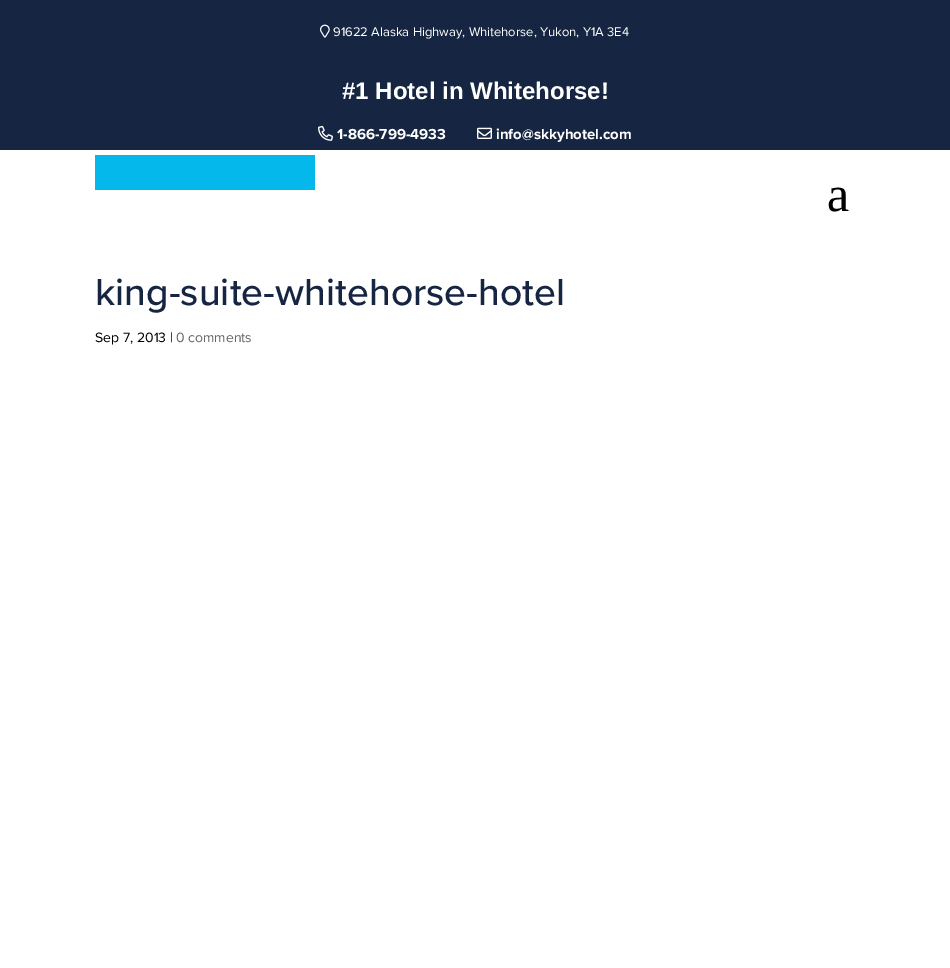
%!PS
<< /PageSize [950 968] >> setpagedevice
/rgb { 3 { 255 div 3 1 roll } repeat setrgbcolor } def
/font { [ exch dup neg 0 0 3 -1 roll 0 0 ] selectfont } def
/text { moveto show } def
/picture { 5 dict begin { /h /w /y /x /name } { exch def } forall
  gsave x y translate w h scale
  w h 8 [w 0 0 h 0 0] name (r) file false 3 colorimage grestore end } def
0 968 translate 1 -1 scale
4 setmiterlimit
255 255 255 rgb
0 0 950 968 rectfill
22 37 65 rgb
0 0 950 150 rectfill
(img_01.rgb) 320 24 10 14 picture
(img_02.rgb) 318 125 15 16 picture
(img_03.rgb) 477 127 15 12 picture
5 184 235 rgb
95 155 220 35 rectfill
/ProximaNova-Regular 13 font
255 255 255 rgb
(91622 Alaska Highway, Whitehorse, Yukon, Y1A 3E4) 333 36 text
/LiberationSans-Bold 24 font
(#1 Hotel in Whitehorse!) 342 99 text
/ProximaNova-Bold 15 font
(1-866-799-4933) 337 139 text
(info@skkyhotel.com) 496 139 text
/LiberationSerif-Regular 50 font
0 0 0 rgb
(a) 827 211 text
/ProximaNova-Medium 39 font
22 37 65 rgb
(king-suite-whitehorse-hotel) 95 305 text
/ProximaNova-Regular 14 font
0 0 0 rgb
(Sep 7, 2013 |) 95 342 text
102 102 102 rgb
(0 comments) 176 342 text
showpage
